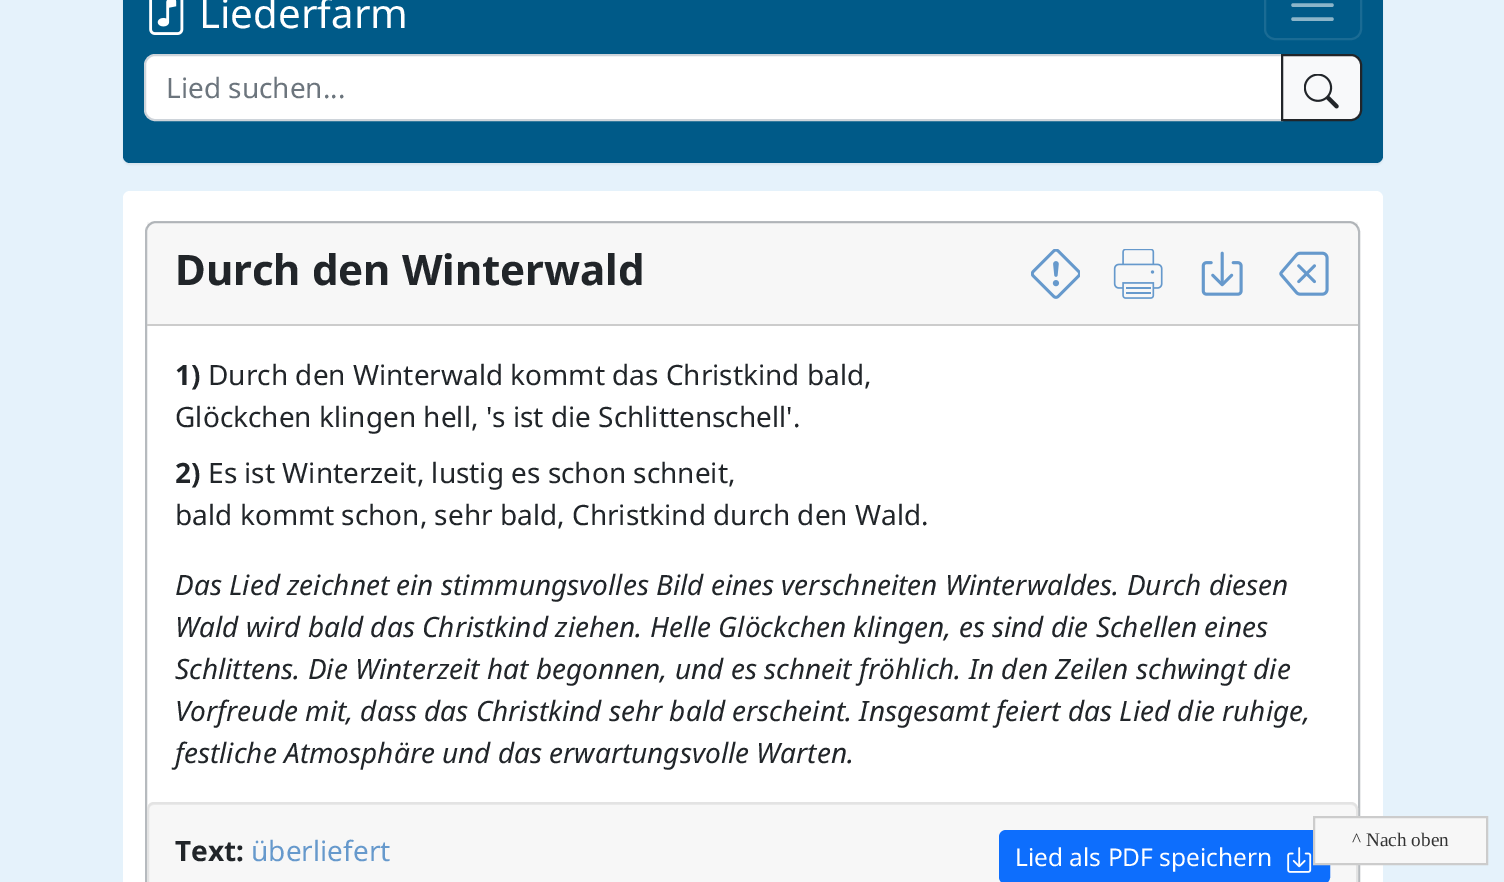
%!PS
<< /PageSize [1504 882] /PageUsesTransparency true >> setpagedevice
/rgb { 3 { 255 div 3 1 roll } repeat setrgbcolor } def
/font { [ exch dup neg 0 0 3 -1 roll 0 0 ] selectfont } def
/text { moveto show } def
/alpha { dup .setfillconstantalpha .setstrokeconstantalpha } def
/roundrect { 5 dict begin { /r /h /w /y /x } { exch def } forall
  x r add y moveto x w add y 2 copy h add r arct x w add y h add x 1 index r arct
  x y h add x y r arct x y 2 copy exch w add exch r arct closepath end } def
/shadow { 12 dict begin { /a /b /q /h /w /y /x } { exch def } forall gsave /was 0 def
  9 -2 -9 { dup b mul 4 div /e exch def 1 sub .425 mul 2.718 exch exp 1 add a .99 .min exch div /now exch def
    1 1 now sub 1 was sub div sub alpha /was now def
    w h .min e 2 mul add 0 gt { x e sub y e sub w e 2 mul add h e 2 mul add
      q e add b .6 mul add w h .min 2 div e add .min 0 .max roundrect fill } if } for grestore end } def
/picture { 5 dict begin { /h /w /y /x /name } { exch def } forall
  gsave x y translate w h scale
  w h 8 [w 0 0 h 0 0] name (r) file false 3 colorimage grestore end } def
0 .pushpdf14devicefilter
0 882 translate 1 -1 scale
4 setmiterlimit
229 242 251 rgb
0 0 1504 882 rectfill
0 0 0 rgb
123 -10 1260 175 7 1 0.05 shadow
0 90 136 rgb
123 -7 1260 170 7 roundrect fill
(img_01.rgb) 149 0 35 35 picture
26 107 148 rgb
2 setlinewidth
1265 -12 96 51 10 roundrect stroke
140 181 201 rgb
3.5 setlinewidth
1 setlinecap
1293 -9 moveto 39 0 rlineto 1293 5 moveto 39 0 rlineto 1293 19 moveto 39 0 rlineto stroke
255 255 255 rgb
155 55 moveto 1127 0 rlineto 0 65 rlineto -1127 0 rlineto -5.5 0 -10 -4.5 -10 -10 rcurveto 0 -45 rlineto 0 -5.5 4.5 -10 10 -10 rcurveto closepath gsave fill grestore
206 212 218 rgb
2 setlinewidth
0 setlinecap
stroke
248 249 250 rgb
1282 55 moveto 69 0 rlineto 5.5 0 10 4.5 10 10 rcurveto 0 45 rlineto 0 5.5 -4.5 10 -10 10 rcurveto -69 0 rlineto closepath gsave fill grestore
33 37 41 rgb
stroke
(img_02.rgb) 1304 74 35 35 picture
255 255 255 rgb
123 191 1260 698 7 roundrect fill
182 186 190 rgb
146 222 1213 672 10 roundrect stroke
0.03 alpha
0 0 0 rgb
147 222 1211 102 rectfill
1 alpha
204 204 204 rgb
147 324 1211 2 rectfill
(img_03.rgb) 1031 249 49 50 picture
(img_04.rgb) 1113 249 50 50 picture
(img_05.rgb) 1201 251 42 45 picture
(img_06.rgb) 1279 251 50 45 picture
247 247 247 rgb
147 802 1211 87 7 roundrect fill
235 235 235 rgb
154 805 moveto 1197 0 rlineto 3 0 5 2 5 5 rcurveto 0 -2 rlineto 0 -3 -2 -5 -5 -5 rcurveto -1197 0 rlineto -3 0 -5 2 -5 5 rcurveto 0 2 rlineto 0 -3 2 -5 5 -5 rcurveto closepath fill
227 227 227 rgb
148 803 1209 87 6 roundrect stroke
13 110 253 rgb
1000 831 329 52 6 roundrect gsave fill grestore
stroke
(img_07.rgb) 1287 847 25 26 picture
247 247 247 rgb
1314 817 moveto 173 0 rlineto 0 47 rlineto -173 0 rlineto closepath gsave fill grestore
204 204 204 rgb
stroke
/NotoSans-Regular 40.25 font
255 255 255 rgb
(Liederfarm) 199 28 text
/NotoSans-Regular 28 font
108 117 125 rgb
(Lied suchen...) 166 98 text
/NotoSans-Bold 42 font
33 37 41 rgb
(Durch den Winterwald) 175 285 text
/NotoSans-Bold 28 font
(1\)) 175 385 text
/NotoSans-Regular 28 font
(Durch den Winterwald kommt das Christkind bald,) 208 385 text
(Glöckchen klingen hell, 's ist die Schlittenschell'.) 175 427 text
/NotoSans-Bold 28 font
(2\)) 175 483 text
/NotoSans-Regular 28 font
(Es ist Winterzeit, lustig es schon schneit,) 208 483 text
(bald kommt schon, sehr bald, Christkind durch den Wald.) 175 525 text
/NotoSans-Italic 28 font
(Das Lied zeichnet ein stimmungsvolles Bild eines verschneiten Winterwaldes. Durch diesen) 175 595 text
(Wald wird bald das Christkind ziehen. Helle Glöckchen klingen, es sind die Schellen eines) 175 637 text
(Schlittens. Die Winterzeit hat begonnen, und es schneit fröhlich. In den Zeilen schwingt die) 175 679 text
(Vorfreude mit, dass das Christkind sehr bald erscheint. Insgesamt feiert das Lied die ruhige,) 175 721 text
(festliche Atmosphäre und das erwartungsvolle Warten.) 175 763 text
/NotoSans-Bold 28 font
(Text:) 175 861 text
/NotoSans-Regular 28 font
102 153 204 rgb
(überliefert) 251 861 text
/NotoSans-Regular 24.5 font
255 255 255 rgb
(Lied als PDF speichern) 1015 866 text
/LiberationSerif-Regular 19.25 font
51 51 51 rgb
(^ Nach oben) 1352 846 text
.poppdf14devicefilter showpage
